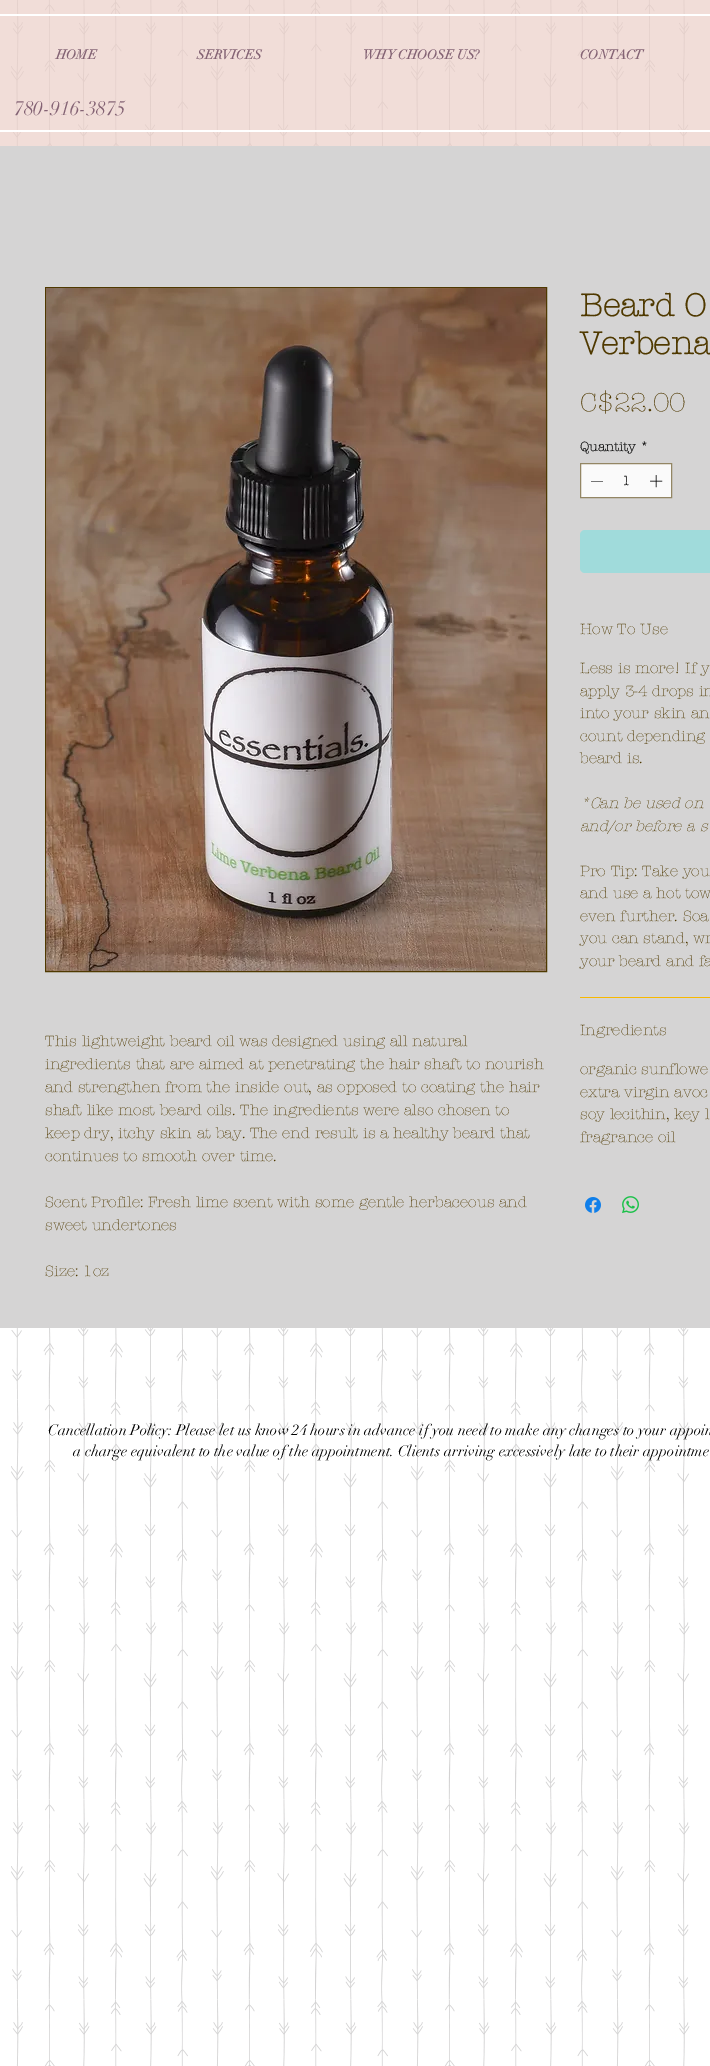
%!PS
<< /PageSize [710 2066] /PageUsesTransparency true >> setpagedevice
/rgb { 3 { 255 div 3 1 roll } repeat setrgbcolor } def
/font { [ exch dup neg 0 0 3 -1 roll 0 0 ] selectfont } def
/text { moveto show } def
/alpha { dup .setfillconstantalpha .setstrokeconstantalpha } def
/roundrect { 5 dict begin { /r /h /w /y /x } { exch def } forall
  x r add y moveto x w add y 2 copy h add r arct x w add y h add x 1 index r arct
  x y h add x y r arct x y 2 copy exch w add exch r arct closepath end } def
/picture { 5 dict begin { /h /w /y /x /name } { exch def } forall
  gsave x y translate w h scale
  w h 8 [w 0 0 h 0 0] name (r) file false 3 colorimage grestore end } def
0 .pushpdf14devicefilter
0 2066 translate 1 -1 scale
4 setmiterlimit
255 255 255 rgb
0 0 710 2066 rectfill
(img_01.rgb) 11 0 679 2066 picture
0.69 alpha
235 206 199 rgb
0 0 710 146 rectfill
1 alpha
255 255 255 rgb
0 14 710 2 rectfill
0 130 710 2 rectfill
213 212 212 rgb
0 146 710 1182 rectfill
79 57 0 rgb
45.5 287.5 501 684 rectstroke
(img_02.rgb) 46 288 500 683 picture
250 250 250 rgb
580.5 463.5 moveto 91 0 rlineto 0 34 rlineto -91 0 rlineto closepath gsave fill grestore
147 134 100 rgb
stroke
0 0 0 rgb
603 481 moveto 0 0.5 rlineto -12 0 rlineto 0 -0.5 rlineto closepath eofill
(img_03.rgb) 650 475 13 13 picture
160 219 219 rgb
580 530 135 43 5 roundrect fill
247 184 0 rgb
580 997 130 1 rectfill
(img_04.rgb) 585 1197 16 16 picture
(img_05.rgb) 622 1196 17 17 picture
/didot-Bold 13 font
132 99 116 rgb
(HOME) 56 59 text
(SERVICES) 197 59 text
(WHY CHOOSE US?) 363 59 text
(CONTACT) 580 59 text
/didot-Regular 20 font
(780-916-3875) 14 115 text
/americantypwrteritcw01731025-Light 15 font
79 57 0 rgb
(This lightweight beard oil was designed using all natural) 45 1046 text
(ingredients that are aimed at penetrating the hair shaft to nourish) 45 1069 text
(and strengthen from the inside out, as opposed to coating the hair) 45 1092 text
(shaft like most beard oils. The ingredients were also chosen to) 45 1115 text
(keep dry, itchy skin at bay. The end result is a healthy beard that) 45 1138 text
(continues to smooth over time.) 45 1161 text
(Scent Profile: Fresh lime scent with some gentle herbaceous and) 45 1207 text
(sweet undertones) 45 1230 text
(Size: 1oz) 45 1276 text
/americantypwrteritcw01731025-Bold 32 font
(Beard O) 580 316 text
(Verbena) 580 354 text
/americantypwrteritcw01731025-Light 26 font
(C$22.00) 580 411 text
/americantypwrteritcw01731025-Bold 13 font
0 0 0 rgb
(Quantity *) 580 451 text
(1) 622 485 text
/americantypwrteritcw01731025-Light 15 font
79 57 0 rgb
(How To Use) 580 634 text
(Less is more! If y) 580 673 text
(apply 3-4 drops in) 580 696 text
(into your skin an) 580 718 text
(count depending) 580 741 text
(beard is.) 580 763 text
/americantypwrteritcw01731025-LightItalic 15 font
(*Can be used on) 580 808 text
(and/or before a s) 580 831 text
/americantypwrteritcw01731025-Light 15 font
(Pro Tip: Take you) 580 876 text
(and use a hot tow) 580 898 text
(even further. Soa) 580 921 text
(you can stand, wr) 580 943 text
(your beard and fa) 580 966 text
(Ingredients) 580 1035 text
(organic sunflowe) 580 1074 text
(extra virgin avoc) 580 1097 text
(soy lecithin, key l) 580 1119 text
(fragrance oil) 580 1142 text
/didot-Regular 15 font
0 0 0 rgb
(Cancellation Policy: Please let us know 24 hours in advance if you need to make any changes to your appoin) 48 1435 text
(a charge equivalent to the value of the appointment. Clients arriving excessively late to their appointme) 73 1456 text
.poppdf14devicefilter showpage
